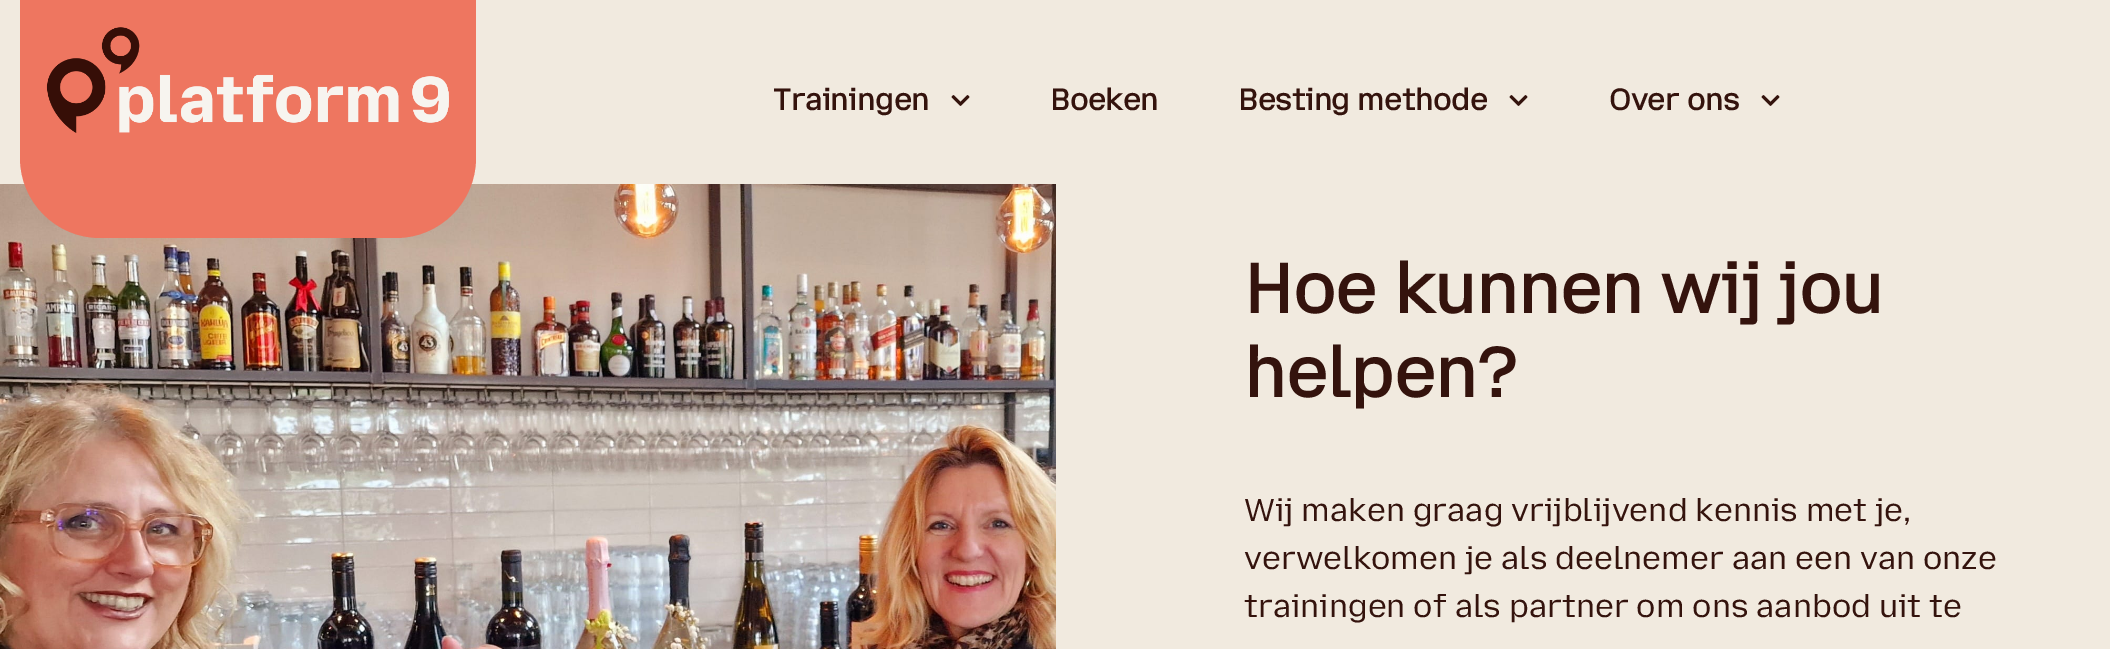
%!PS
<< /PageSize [2110 649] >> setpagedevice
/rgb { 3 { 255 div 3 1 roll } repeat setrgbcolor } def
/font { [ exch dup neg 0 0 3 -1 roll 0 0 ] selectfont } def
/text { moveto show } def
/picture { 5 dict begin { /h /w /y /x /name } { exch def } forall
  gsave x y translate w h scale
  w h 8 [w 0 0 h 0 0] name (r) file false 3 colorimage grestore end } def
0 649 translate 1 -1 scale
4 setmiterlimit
241 234 223 rgb
0 0 2110 649 rectfill
(img_03.rgb) 0 184 1056 465 picture
238 118 96 rgb
20 0 moveto 456 0 rlineto 0 158 rlineto 0 44 -36 80 -80 80 rcurveto -296 0 rlineto -44 0 -80 -36 -80 -80 rcurveto closepath fill
(img_01.rgb) 46 27 403 106 picture
(img_02.rgb) 951 95 19 11 picture
(img_02.rgb) 1509 95 19 11 picture
(img_02.rgb) 1761 95 19 11 picture
/MozillaText-Bold 30 font
52 19 13 rgb
(Trainingen) 773 110 text
(Boeken) 1050 110 text
(Besting methode) 1238 110 text
(Over ons) 1609 110 text
/MozillaText-Bold 70 font
(Hoe kunnen wij jou) 1244 313 text
(helpen?) 1244 397 text
/MozillaText-Regular 32 font
(Wij maken graag vrijblijvend kennis met je,) 1244 521 text
(verwelkomen je als deelnemer aan een van onze) 1244 569 text
(trainingen of als partner om ons aanbod uit te) 1244 617 text
showpage
